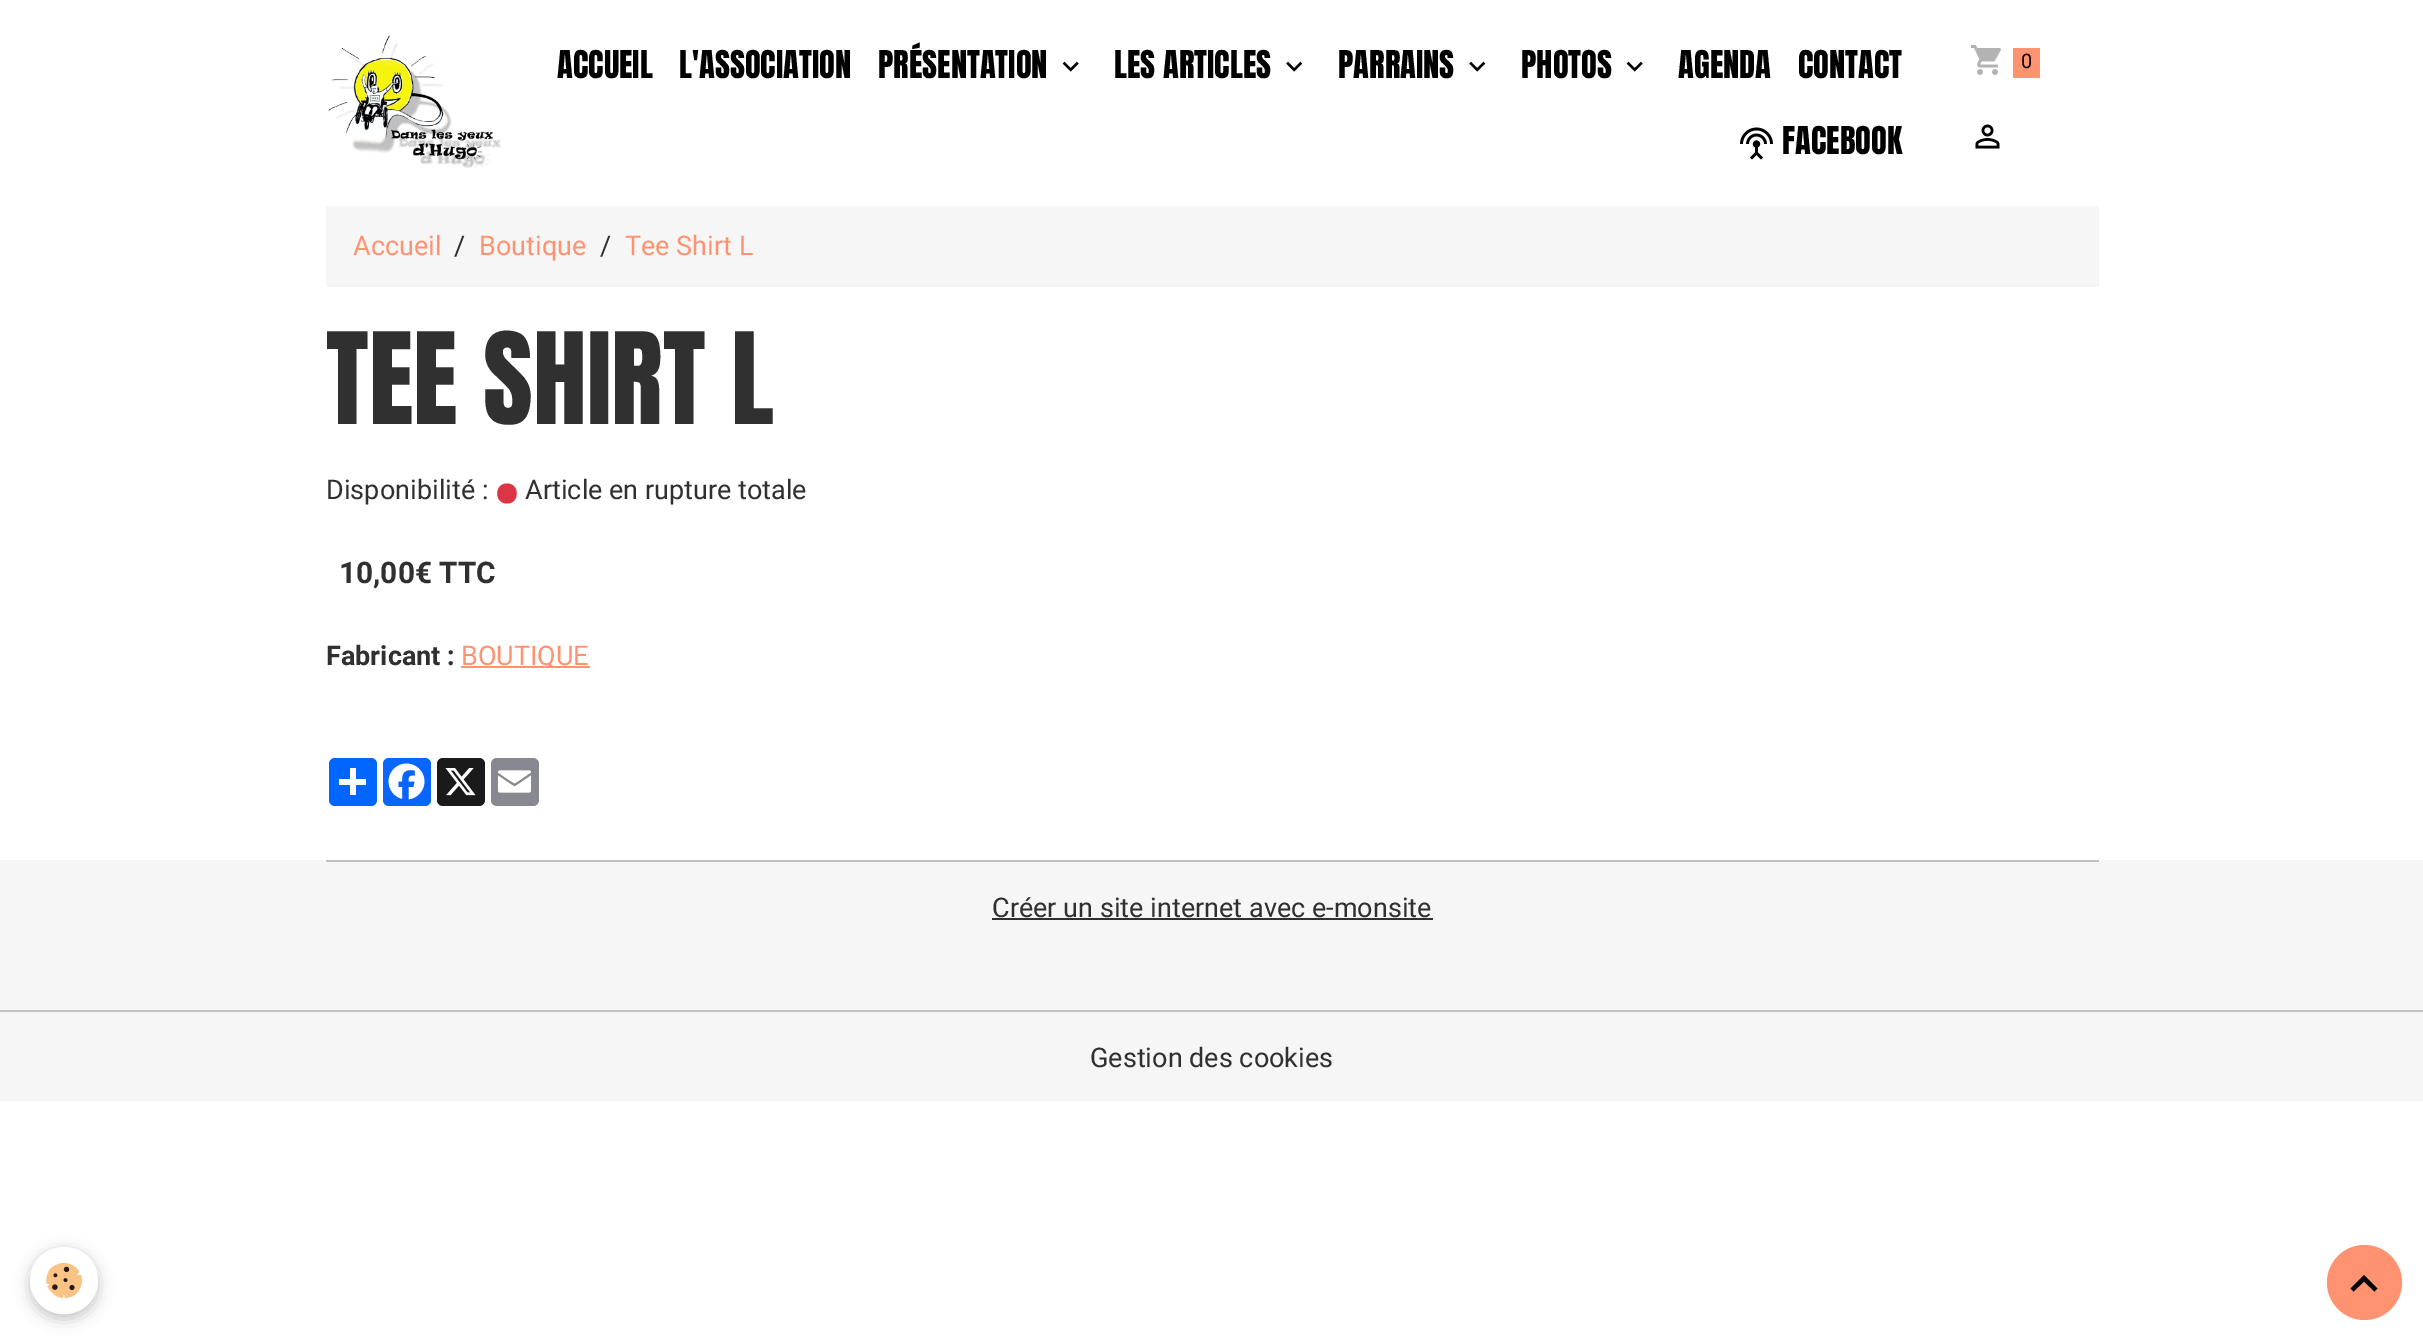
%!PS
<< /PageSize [2423 1342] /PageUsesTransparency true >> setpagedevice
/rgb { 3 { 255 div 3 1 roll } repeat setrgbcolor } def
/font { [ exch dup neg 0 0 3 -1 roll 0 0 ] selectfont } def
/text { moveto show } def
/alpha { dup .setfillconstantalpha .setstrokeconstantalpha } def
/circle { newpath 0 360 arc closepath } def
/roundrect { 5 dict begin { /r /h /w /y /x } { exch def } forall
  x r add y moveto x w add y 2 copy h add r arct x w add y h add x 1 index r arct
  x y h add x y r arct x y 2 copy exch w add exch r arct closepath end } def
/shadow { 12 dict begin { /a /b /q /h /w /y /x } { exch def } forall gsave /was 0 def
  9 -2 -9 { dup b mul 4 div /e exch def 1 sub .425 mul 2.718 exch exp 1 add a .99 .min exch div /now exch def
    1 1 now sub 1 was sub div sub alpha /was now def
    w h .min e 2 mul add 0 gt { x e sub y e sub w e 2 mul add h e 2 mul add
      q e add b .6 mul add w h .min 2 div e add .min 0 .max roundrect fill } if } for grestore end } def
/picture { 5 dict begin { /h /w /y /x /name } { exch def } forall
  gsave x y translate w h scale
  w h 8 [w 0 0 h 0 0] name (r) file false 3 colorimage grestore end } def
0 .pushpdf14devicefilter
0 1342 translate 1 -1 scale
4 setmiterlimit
255 255 255 rgb
0 0 2423 1342 rectfill
(img_01.rgb) 328 35 173 133 picture
(img_02.rgb) 1062 61 17 11 picture
(img_03.rgb) 1286 61 17 11 picture
(img_03.rgb) 1469 61 17 11 picture
(img_02.rgb) 1626 61 17 11 picture
(img_04.rgb) 1740 127 33 33 picture
(img_05.rgb) 1971 45 30 30 picture
255 147 113 rgb
2013 48 27 30 rectfill
(img_06.rgb) 1975 124 25 25 picture
246 246 246 rgb
326 206 1773 81 rectfill
220 53 69 rgb
507 483.5 moveto 13 0 13 20 0 20 rcurveto -13 0 -13 -20 0 -20 rcurveto closepath fill
255 147 113 rgb
461 666 129 2 rectfill
1 102 255 rgb
329 758 48 48 6 roundrect fill
255 255 255 rgb
350 768 6 27 rectfill
339 779 27 6 rectfill
8 102 255 rgb
383 758 48 48 6 roundrect fill
(img_07.rgb) 388 763 37 37 picture
26 26 26 rgb
437 758 48 48 6 roundrect fill
(img_08.rgb) 445 768 31 28 picture
136 137 144 rgb
491 758 48 48 6 roundrect fill
(img_09.rgb) 498 770 33 23 picture
246 246 246 rgb
0 860 2423 241 rectfill
193 193 193 rgb
326 860 1773 2 rectfill
48 48 48 rgb
992 918 441 2 rectfill
193 193 193 rgb
0 1010 2423 2 rectfill
0 0 0 rgb
30 1251 68 68 34 7.5 0.24 shadow
255 255 255 rgb
30 1247 68 67 33.5 roundrect fill
(img_10.rgb) 46 1262 37 36 picture
255 147 113 rgb
2364.5 1282.5 37.5 circle fill
0 0 0 rgb
2364 1275 moveto 13.5 13.5 rlineto -3 3 rlineto -10.5 -10 rlineto -10.5 10 rlineto -3 -3 rlineto closepath fill
/Anton-Regular 32.5 font
(ACCUEIL) 557 78 text
(L'ASSOCIATION) 679 78 text
(PRÉSENTATION) 878 78 text
(LES ARTICLES) 1114 78 text
(PARRAINS) 1338 78 text
(PHOTOS) 1521 78 text
(AGENDA) 1678 78 text
(CONTACT) 1798 78 text
(FACEBOOK) 1782 154 text
/Heebo-Regular 20 font
(0) 2021 68 text
/Heebo-Regular 27 font
255 147 113 rgb
(Accueil) 353 255 text
48 48 48 rgb
(/) 454 255 text
255 147 113 rgb
(Boutique) 479 255 text
48 48 48 rgb
(/) 600 255 text
255 147 113 rgb
(Tee Shirt L) 625 255 text
/Anton-Regular 108 font
48 48 48 rgb
(TEE SHIRT L) 326 424 text
/Heebo-Regular 27 font
(Disponibilité :) 326 499 text
(Article en rupture totale) 525 499 text
/Heebo-Bold 29.75 font
(10,00€ TTC) 339 583 text
/Heebo-Bold 27 font
(Fabricant :) 326 665 text
/Heebo-Regular 27 font
255 147 113 rgb
(BOUTIQUE) 461 665 text
48 48 48 rgb
(Créer un site internet avec e-monsite) 992 917 text
(Gestion des cookies) 1090 1067 text
.poppdf14devicefilter showpage
